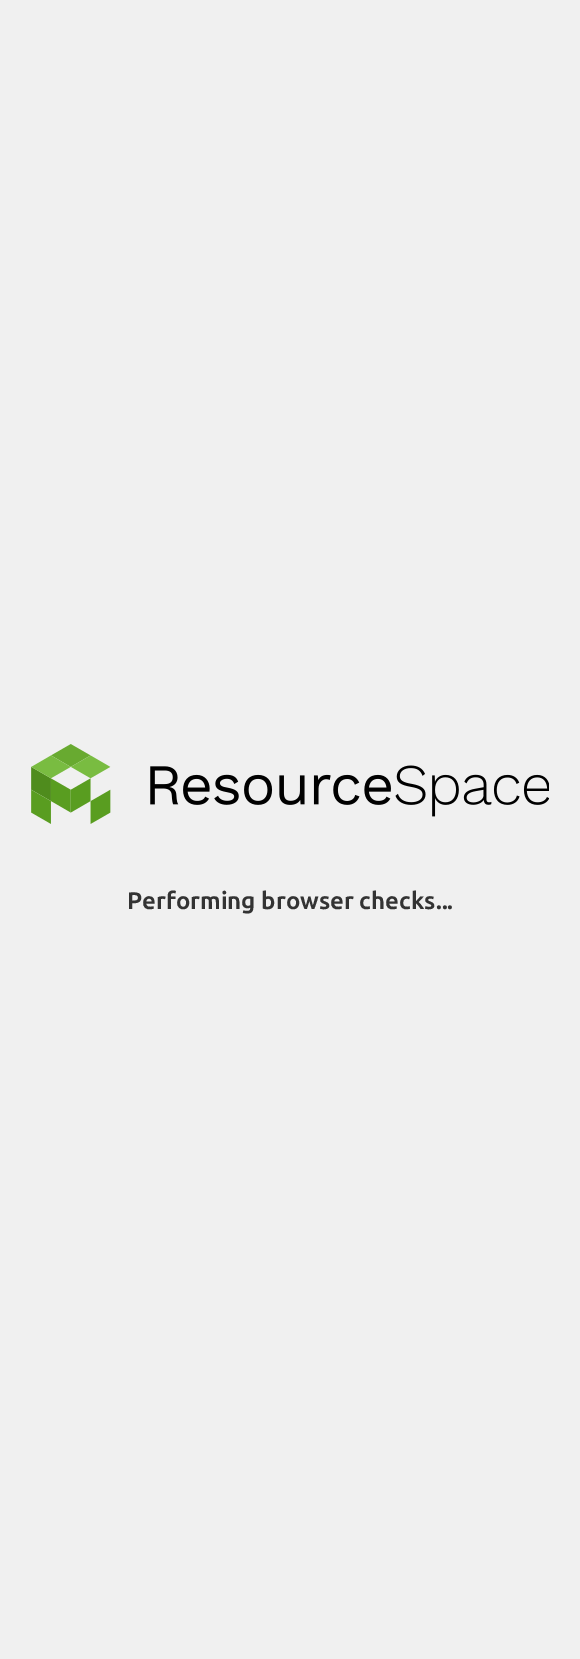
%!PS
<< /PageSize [580 1659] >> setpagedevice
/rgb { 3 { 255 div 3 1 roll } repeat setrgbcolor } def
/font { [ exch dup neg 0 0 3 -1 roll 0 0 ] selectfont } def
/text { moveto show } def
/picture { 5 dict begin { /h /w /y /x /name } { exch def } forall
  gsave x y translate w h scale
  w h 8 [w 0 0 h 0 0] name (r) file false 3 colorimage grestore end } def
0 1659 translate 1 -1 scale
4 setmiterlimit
240 240 240 rgb
0 0 580 1659 rectfill
(img_01.rgb) 31 744 518 80 picture
/Ubuntu-Bold 24 font
51 51 51 rgb
(Performing browser checks...) 127 909 text
showpage
